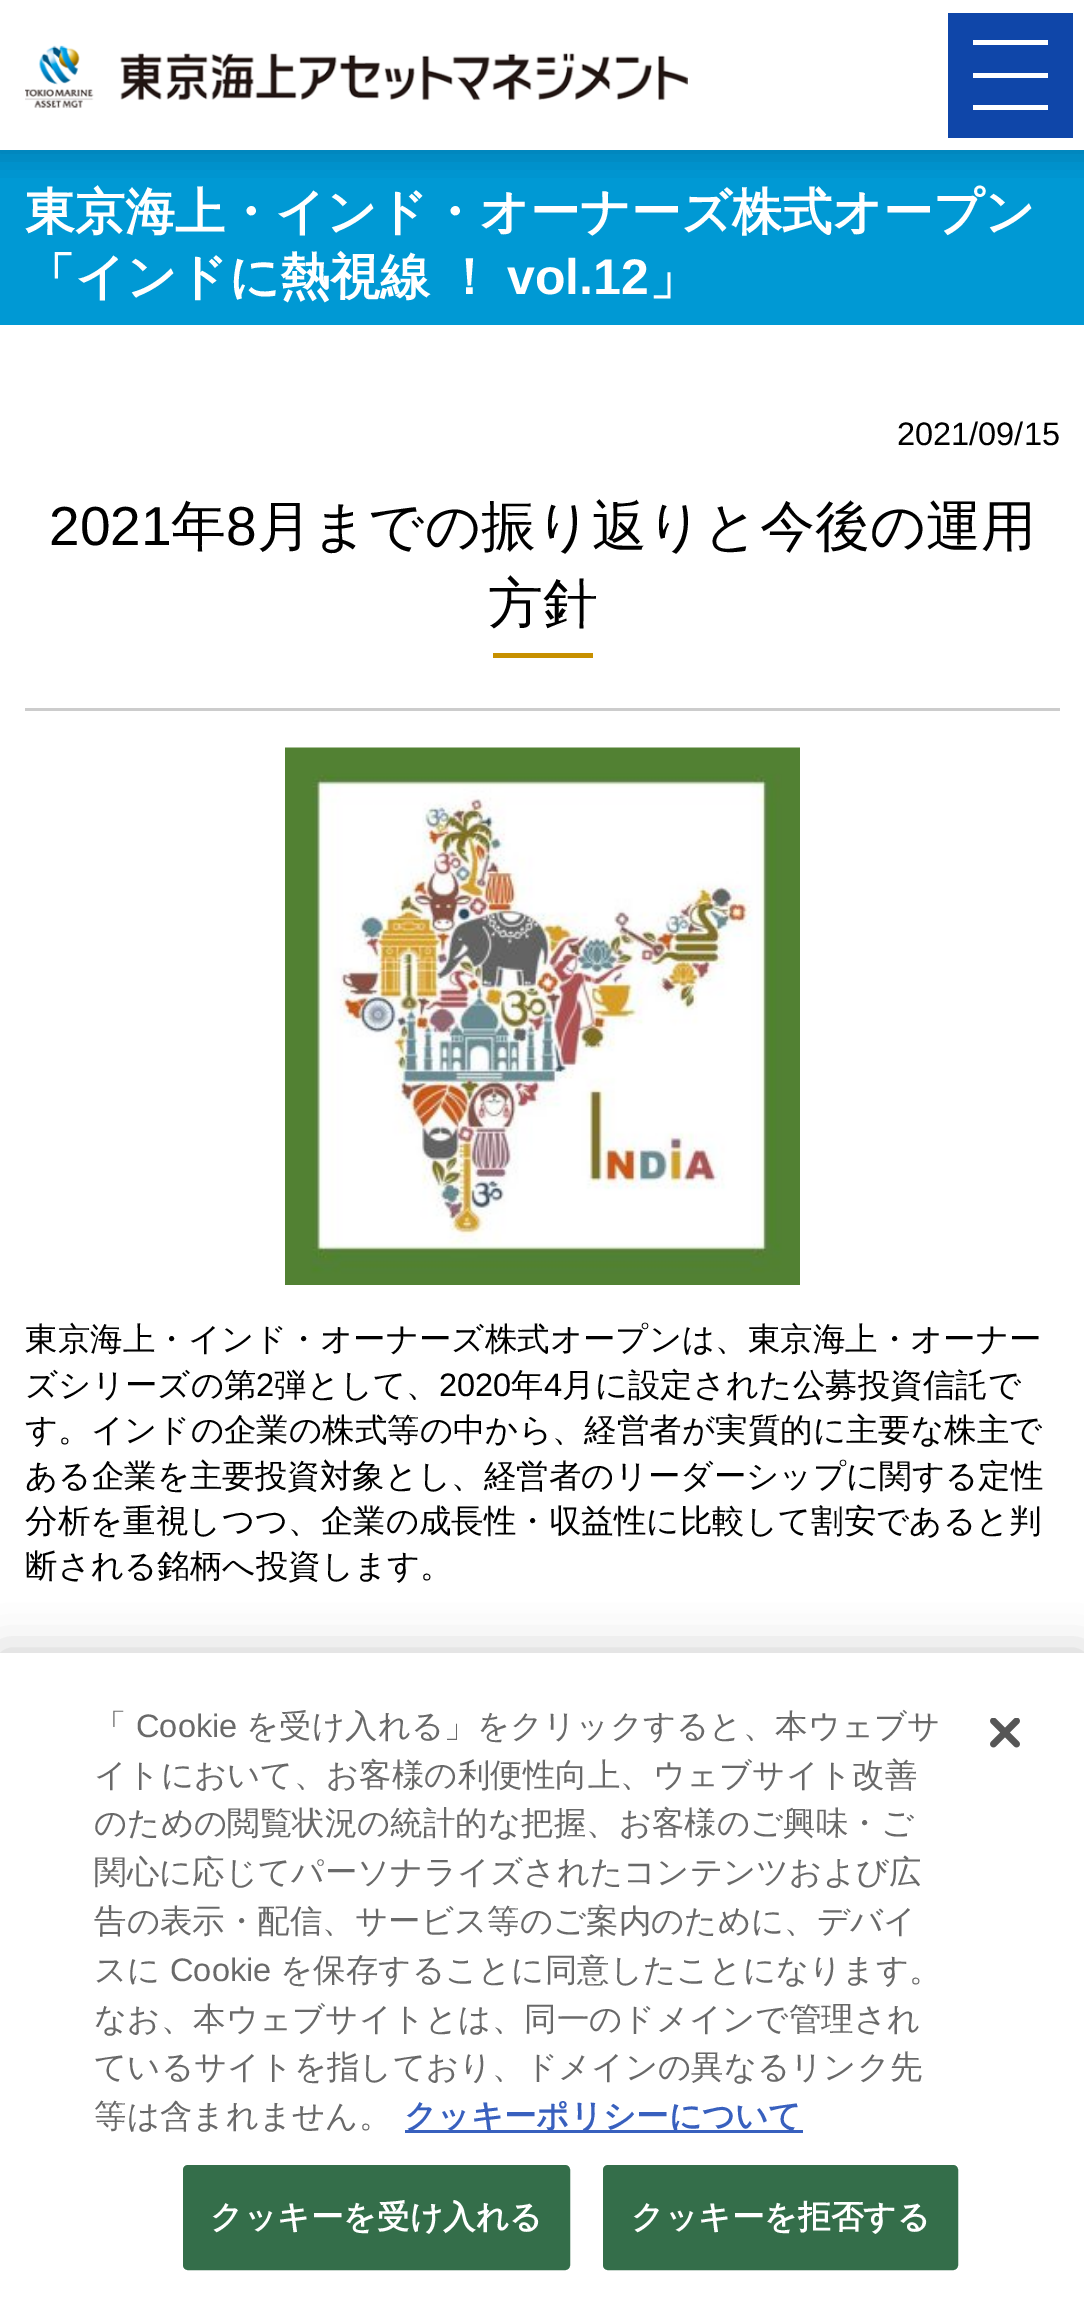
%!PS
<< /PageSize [1084 2303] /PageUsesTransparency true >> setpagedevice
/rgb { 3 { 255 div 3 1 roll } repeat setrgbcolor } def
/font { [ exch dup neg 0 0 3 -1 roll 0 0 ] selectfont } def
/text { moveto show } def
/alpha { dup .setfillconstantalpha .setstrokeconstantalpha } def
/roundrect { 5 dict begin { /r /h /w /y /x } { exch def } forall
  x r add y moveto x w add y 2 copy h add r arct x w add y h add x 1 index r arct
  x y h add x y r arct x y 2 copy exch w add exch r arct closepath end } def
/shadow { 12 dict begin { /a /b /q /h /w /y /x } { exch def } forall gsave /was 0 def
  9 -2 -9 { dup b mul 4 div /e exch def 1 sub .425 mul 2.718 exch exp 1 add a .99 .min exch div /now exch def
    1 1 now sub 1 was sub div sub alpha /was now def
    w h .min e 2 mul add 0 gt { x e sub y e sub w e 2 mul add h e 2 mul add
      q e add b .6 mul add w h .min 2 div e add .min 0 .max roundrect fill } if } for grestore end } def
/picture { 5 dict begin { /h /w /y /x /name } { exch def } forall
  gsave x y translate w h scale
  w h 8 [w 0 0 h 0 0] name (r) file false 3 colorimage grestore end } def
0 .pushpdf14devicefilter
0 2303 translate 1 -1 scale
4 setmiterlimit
255 255 255 rgb
0 0 1084 2303 rectfill
0 153 212 rgb
0 150 1084 175 rectfill
gsave
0 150 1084 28 rectclip
12 24 51 rgb
-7 -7 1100 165 0 16 0.2 shadow
grestore
(img_01.rgb) 25 45 663 63 picture
15 70 169 rgb
948 13 125 125 rectfill
255 255 255 rgb
973 40 75 5 rectfill
973 73 75 5 rectfill
973 105 75 5 rectfill
199 144 0 rgb
493 653 100 5 rectfill
204 204 204 rgb
25 708 1035 3 rectfill
(img_02.rgb) 285 747 515 538 picture
0 0 0 rgb
0 1653 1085 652 0 22.5 0.2 shadow
255 255 255 rgb
0 1653 1084 650 rectfill
56 96 190 rgb
405 2130 398 3 rectfill
52 110 74 rgb
184.5 2166.5 384 102 3.5 roundrect gsave fill grestore
3 setlinewidth
stroke
604.5 2166.5 352 102 3.5 roundrect gsave fill grestore
stroke
(img_03.rgb) 990 1718 30 30 picture
/WenQuanYiZenHei-Bold 50 font
255 255 255 rgb
(東京海上・インド・オーナーズ株式オープン) 25 229 text
25 294 moveto -1 0 32 (「インドに熱視線 ！) widthshow
/LiberationSans-Bold 50 font
(vol.12) 507 294 text
/WenQuanYiZenHei-Bold 50 font
(」) 649 294 text
/LiberationSans-Regular 32.5 font
0 0 0 rgb
(2021/09/15) 897 445 text
/LiberationSans-Regular 55 font
(2021) 49 545 text
/WenQuanYiZenHei-Medium 55 font
(年) 171 545 text
/LiberationSans-Regular 55 font
(8) 226 545 text
/WenQuanYiZenHei-Medium 55 font
(月までの振り返りと今後の運用) 257 545 text
(方針) 488 622 text
/WenQuanYiZenHei-Medium 32.5 font
(東京海上・インド・オーナーズ株式オープンは、東京海上・オーナー) 25 1350 text
(ズシリーズの第) 25 1396 text
/LiberationSans-Regular 32.5 font
(2) 256 1396 text
/WenQuanYiZenHei-Medium 32.5 font
(弾として、) 274 1396 text
/LiberationSans-Regular 32.5 font
(2020) 439 1396 text
/WenQuanYiZenHei-Medium 32.5 font
(年) 511 1396 text
/LiberationSans-Regular 32.5 font
(4) 544 1396 text
/WenQuanYiZenHei-Medium 32.5 font
(月に設定された公募投資信託で) 562 1396 text
(す。インドの企業の株式等の中から、経営者が実質的に主要な株主で) 25 1441 text
(ある企業を主要投資対象とし、経営者のリーダーシップに関する定性) 25 1487 text
(分析を重視しつつ、企業の成長性・収益性に比較して割安であると判) 25 1532 text
(断される銘柄へ投資します。) 25 1577 text
105 105 105 rgb
(「) 94 1737 text
/LiberationSans-Regular 32.5 font
(Cookie) 136 1737 text
/WenQuanYiZenHei-Medium 32.5 font
(を受け入れる」をクリックすると、本ウェブサ) 246 1737 text
(イトにおいて、お客様の利便性向上、ウェブサイト改善) 94 1786 text
(のための閲覧状況の統計的な把握、お客様のご興味・ご) 94 1834 text
(関心に応じてパーソナライズされたコンテンツおよび広) 94 1883 text
(告の表示・配信、サービス等のご案内のために、デバイ) 94 1932 text
(スに) 94 1981 text
/LiberationSans-Regular 32.5 font
(Cookie) 170 1981 text
/WenQuanYiZenHei-Medium 32.5 font
(を保存することに同意したことになります。) 280 1981 text
(なお、本ウェブサイトとは、同一のドメインで管理され) 94 2030 text
(ているサイトを指しており、ドメインの異なるリンク先) 94 2078 text
(等は含まれません。) 94 2127 text
/WenQuanYiZenHei-Bold 32.5 font
56 96 190 rgb
(クッキーポリシーについて) 404 2127 text
255 255 255 rgb
210 2228 moveto 0.25 0 (クッキーを受け入れる) ashow
631 2228 moveto 0.25 0 (クッキーを拒否する) ashow
.poppdf14devicefilter showpage
